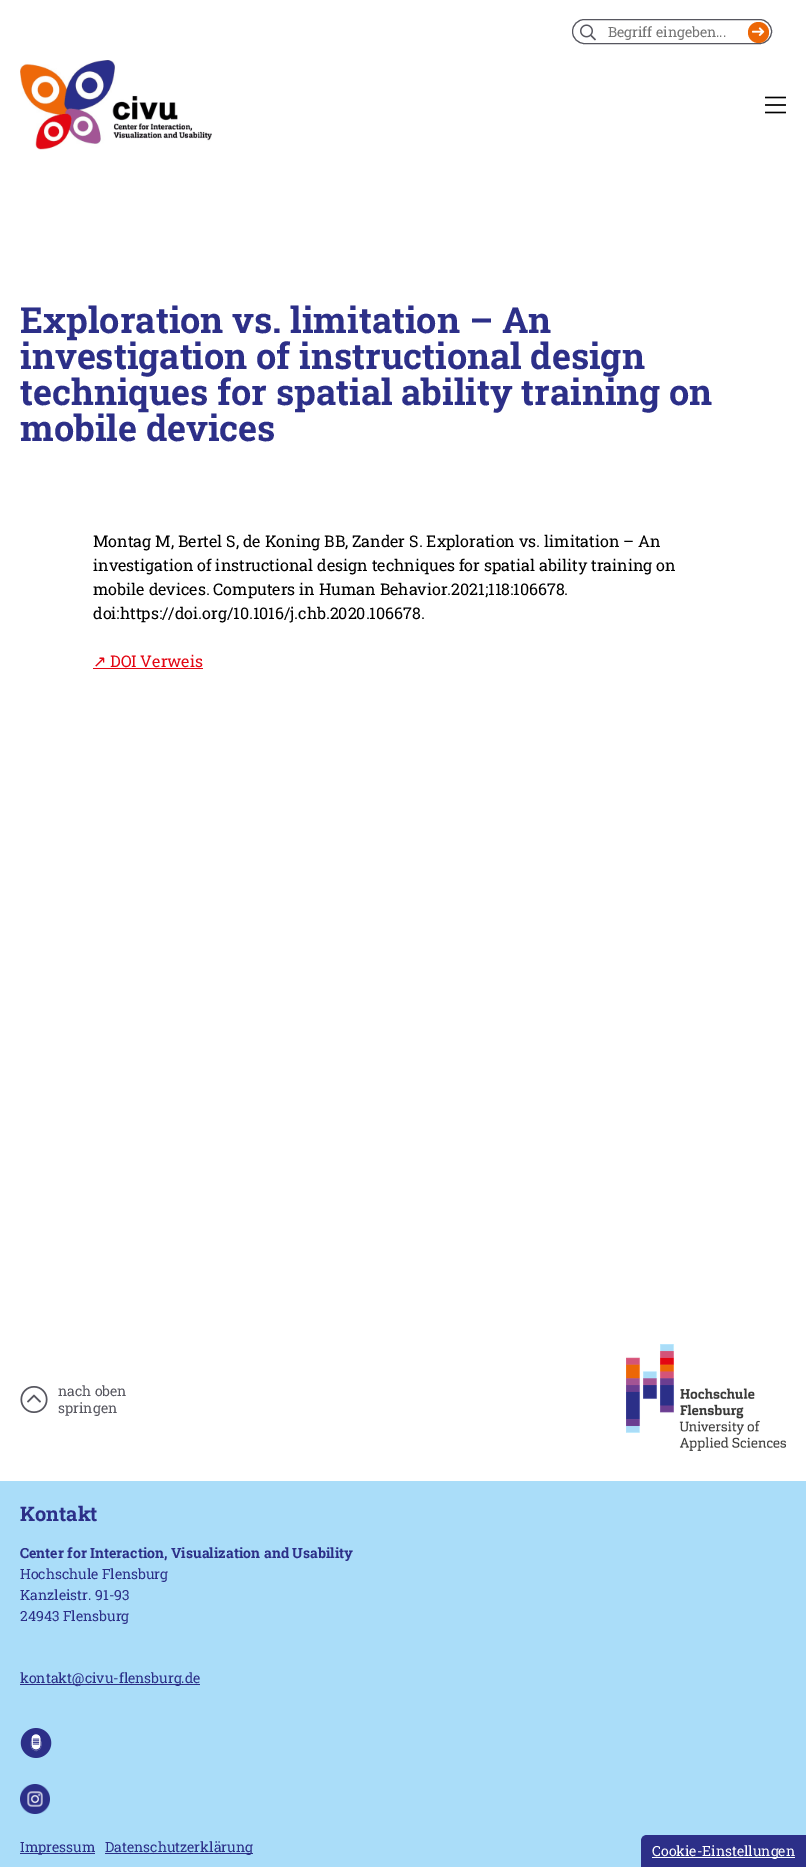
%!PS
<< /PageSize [806 1867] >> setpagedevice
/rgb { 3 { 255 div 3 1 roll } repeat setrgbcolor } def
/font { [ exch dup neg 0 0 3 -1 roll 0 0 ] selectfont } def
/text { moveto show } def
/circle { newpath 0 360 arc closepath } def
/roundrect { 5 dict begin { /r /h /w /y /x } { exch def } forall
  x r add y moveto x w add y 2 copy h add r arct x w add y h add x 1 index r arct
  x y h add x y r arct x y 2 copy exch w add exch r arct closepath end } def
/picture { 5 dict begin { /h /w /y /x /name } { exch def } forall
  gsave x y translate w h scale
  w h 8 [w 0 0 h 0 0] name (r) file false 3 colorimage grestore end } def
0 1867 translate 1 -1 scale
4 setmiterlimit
255 255 255 rgb
0 0 806 1867 rectfill
87 87 96 rgb
572.5 19.5 199 24 12 roundrect stroke
(img_01.rgb) 580 24 16 17 picture
236 103 7 rgb
758.5 32.5 10.5 circle fill
(img_02.rgb) 752 27 13 9 picture
(img_03.rgb) 20 60 192 90 picture
(img_04.rgb) 765 96 21 18 picture
227 6 19 rgb
93 668 110 1 rectfill
(img_05.rgb) 20 1386 28 27 picture
(img_06.rgb) 626 1344 160 107 picture
170 221 249 rgb
0 1481 806 386 rectfill
44 47 136 rgb
20 1684 180 1 rectfill
(img_07.rgb) 20 1728 32 30 picture
(img_08.rgb) 20 1784 30 30 picture
20 1853 75 1 rectfill
105 1853 148 1 rectfill
647 1835 moveto 159 0 rlineto 0 32 rlineto -165 0 rlineto 0 -26 rlineto 0 -3.5 2.5 -6 6 -6 rcurveto closepath fill
255 255 255 rgb
652 1857 143 1 rectfill
/RobotoSlab-Regular 14 font
117 117 117 rgb
(Begriff eingeben...) 608 37 text
/RobotoSlab-Bold 36 font
44 47 136 rgb
(Exploration vs. limitation – An) 20 333 text
(investigation of instructional design) 20 369 text
(techniques for spatial ability training on) 20 405 text
(mobile devices) 20 441 text
/RobotoSlab-Regular 16 font
0 0 0 rgb
(Montag M, Bertel S, de Koning BB, Zander S. Exploration vs. limitation – An) 93 547 text
(investigation of instructional design techniques for spatial ability training on) 93 571 text
(mobile devices. Computers in Human Behavior.2021;118:106678.) 93 595 text
(doi:https://doi.org/10.1016/j.chb.2020.106678.) 93 619 text
/DejaVuSans-Regular 16 font
227 6 19 rgb
(↗) 93 667 text
/RobotoSlab-Regular 16 font
(DOI Verweis) 110 667 text
/RobotoSlab-Regular 14 font
87 87 96 rgb
(nach oben) 58 1396 text
(springen) 58 1413 text
/RobotoSlab-Bold 20 font
44 47 136 rgb
(Kontakt) 20 1521 text
/RobotoSlab-Bold 14 font
(Center for Interaction, Visualization and Usability) 20 1558 text
/RobotoSlab-Regular 14 font
(Hochschule Flensburg) 20 1579 text
(Kanzleistr. 91-93) 20 1600 text
(24943 Flensburg) 20 1621 text
(kontakt@civu-flensburg.de) 20 1683 text
(Impressum) 20 1852 text
(Datenschutzerklärung) 105 1852 text
255 255 255 rgb
(Cookie-Einstellungen) 652 1856 text
showpage
